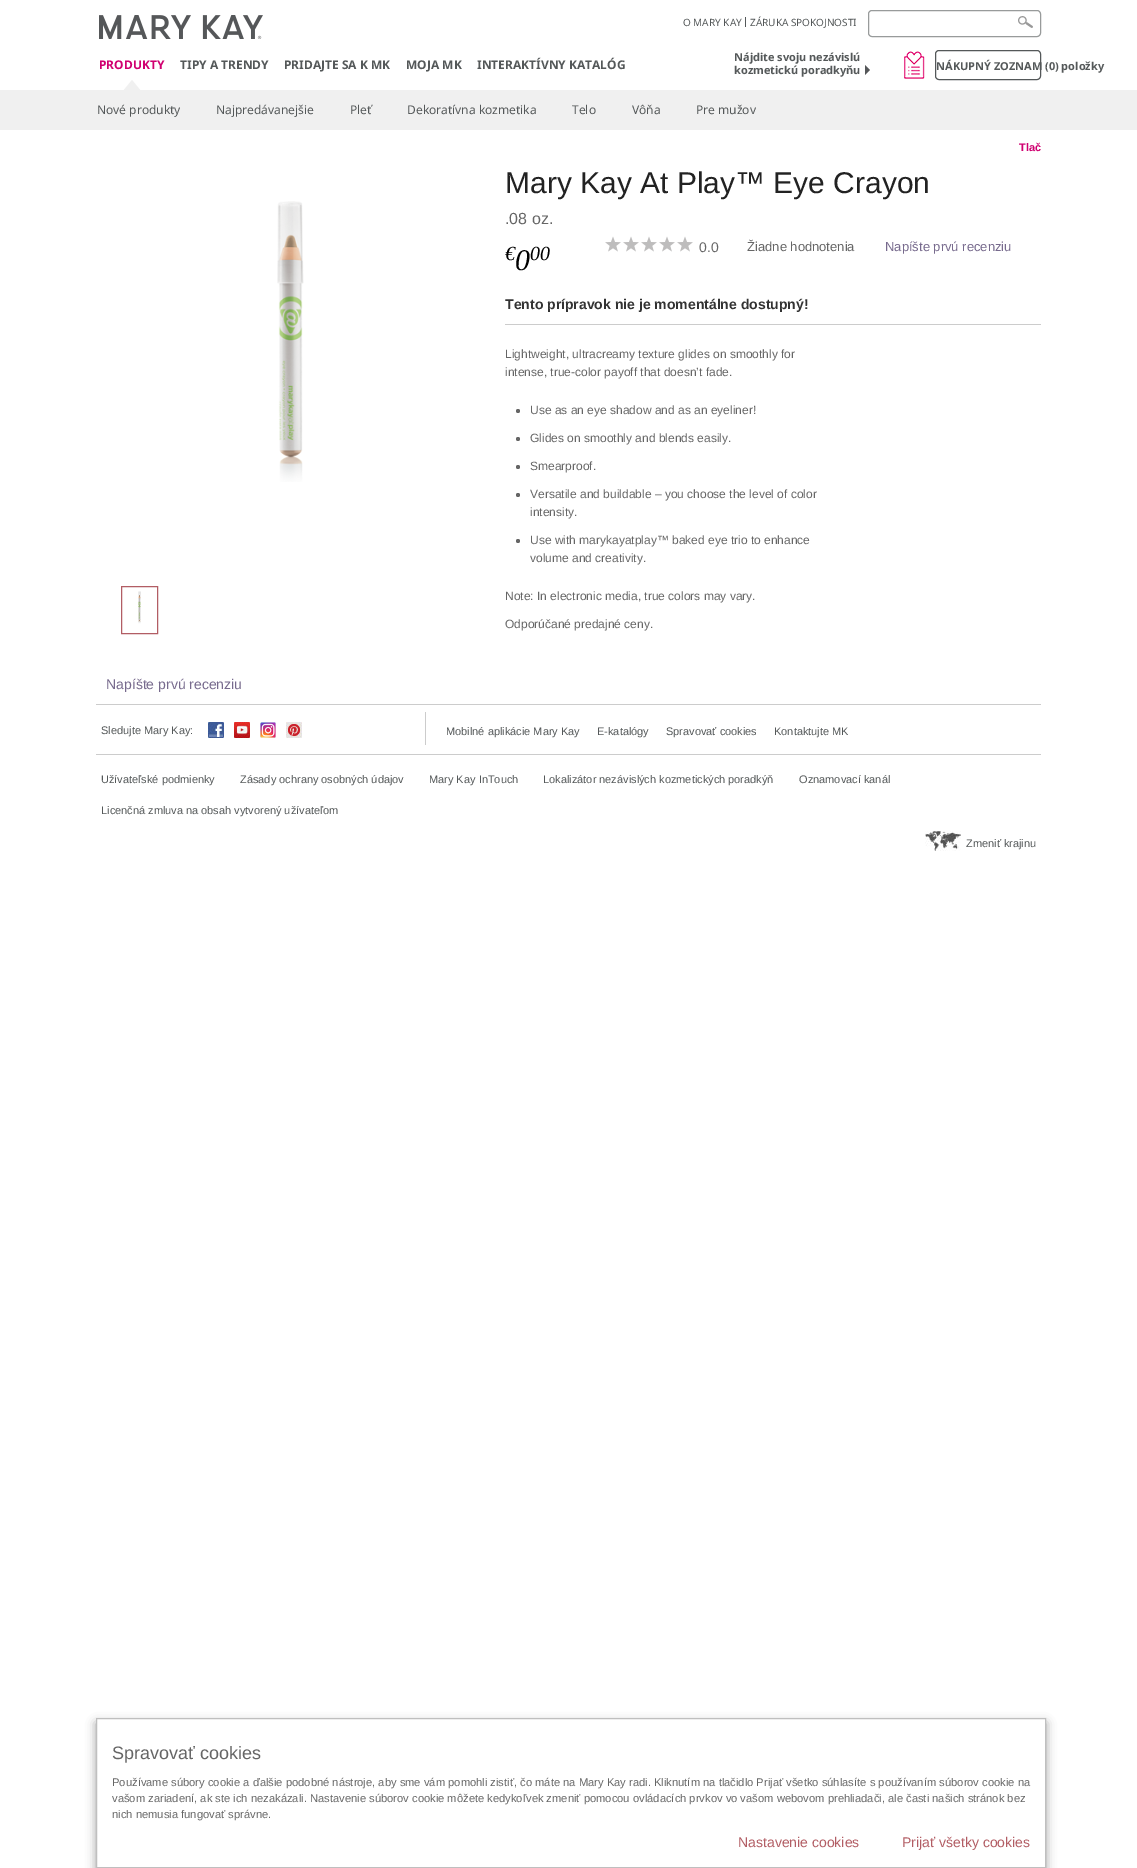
%!PS
<< /PageSize [1137 1868] /PageUsesTransparency true >> setpagedevice
/rgb { 3 { 255 div 3 1 roll } repeat setrgbcolor } def
/font { [ exch dup neg 0 0 3 -1 roll 0 0 ] selectfont } def
/text { moveto show } def
/alpha { dup .setfillconstantalpha .setstrokeconstantalpha } def
/circle { newpath 0 360 arc closepath } def
/roundrect { 5 dict begin { /r /h /w /y /x } { exch def } forall
  x r add y moveto x w add y 2 copy h add r arct x w add y h add x 1 index r arct
  x y h add x y r arct x y 2 copy exch w add exch r arct closepath end } def
/shadow { 12 dict begin { /a /b /q /h /w /y /x } { exch def } forall gsave /was 0 def
  9 -2 -9 { dup b mul 4 div /e exch def 1 sub .425 mul 2.718 exch exp 1 add a .99 .min exch div /now exch def
    1 1 now sub 1 was sub div sub alpha /was now def
    w h .min e 2 mul add 0 gt { x e sub y e sub w e 2 mul add h e 2 mul add
      q e add b .6 mul add w h .min 2 div e add .min 0 .max roundrect fill } if } for grestore end } def
/picture { 5 dict begin { /h /w /y /x /name } { exch def } forall
  gsave x y translate w h scale
  w h 8 [w 0 0 h 0 0] name (r) file false 3 colorimage grestore end } def
0 .pushpdf14devicefilter
0 1868 translate 1 -1 scale
4 setmiterlimit
255 255 255 rgb
0 0 1137 1868 rectfill
84 88 89 rgb
745 17 1 10 rectfill
(img_01.rgb) 1018 16 15 12 picture
0.6 alpha
255 255 255 rgb
868.5 10.5 172 26 3.5 roundrect fill
1 alpha
152 155 155 rgb
868.5 10.5 172 26 3.5 roundrect stroke
(img_02.rgb) 99 15 164 24 picture
240 240 240 rgb
0 90 1137 40 rectfill
141 91 moveto -18 0 rlineto 9 -11 rlineto closepath fill
85 87 89 rgb
865 75 moveto 0 -10 rlineto 5 5 rlineto closepath fill
(img_03.rgb) 904 50 21 29 picture
84 88 89 rgb
935.5 50.5 105 29 3.5 roundrect stroke
(img_04.rgb) 277 201 27 281 picture
178 93 100 rgb
121.5 586.5 36 47 rectstroke
(img_05.rgb) 138 591 3 33 picture
204 204 204 rgb
505 324 536 1 rectfill
(img_06.rgb) 605 236 16 16 picture
(img_06.rgb) 623 236 16 16 picture
(img_06.rgb) 641 236 16 16 picture
(img_06.rgb) 659 236 16 16 picture
(img_06.rgb) 677 236 16 16 picture
102 102 102 rgb
518 411 2 circle fill
518 439 2 circle fill
518 467 2 circle fill
518 495 2 circle fill
518 541 2 circle fill
204 204 204 rgb
96 704 945 1 rectfill
96 754 945 1 rectfill
425 712 1 33 rectfill
(img_07.rgb) 208 722 16 16 picture
(img_08.rgb) 234 722 16 16 picture
(img_09.rgb) 260 722 16 16 picture
(img_10.rgb) 286 722 16 16 picture
(img_11.rgb) 925 831 36 20 picture
gsave
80 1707 moveto 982 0 rlineto 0 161 rlineto -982 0 rlineto closepath 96 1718 moveto 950 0 rlineto 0 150 rlineto -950 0 rlineto closepath eoclip newpath
153 153 153 rgb
96 1723 950 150 0 5 1 shadow
grestore
191 191 191 rgb
96.5 1718.5 949 149 rectstroke
/NotoSans-Regular 10 font
84 88 89 rgb
(O MARY KAY) 683 26 text
(ZÁRUKA SPOKOJNOSTI) 750 26 text
/NotoSans-Bold 12 font
208 0 112 rgb
(PRODUKTY) 99 69 text
84 88 89 rgb
(TIPY A TRENDY) 180 69 text
(PRIDAJTE SA K MK) 284 69 text
(MOJA MK) 406 69 text
(INTERAKTÍVNY KATALÓG) 477 69 text
/NotoSans-Bold 11 font
(Nájdite svoju nezávislú) 734 61 text
(kozmetickú poradkyňu) 734 74 text
(NÁKUPNÝ ZOZNAM \(0\) položky) 936 70 text
/NotoSans-Regular 12 font
(Nové produkty) 97 114 text
(Najpredávanejšie) 216 114 text
(Pleť) 350 114 text
(Dekoratívna kozmetika) 407 114 text
(Telo) 572 114 text
(Vôňa) 632 114 text
(Pre mužov) 696 114 text
/LiberationSans-Bold 11 font
208 0 112 rgb
(Tlač) 1019 151 text
/LiberationSans-Regular 30 font
34 34 34 rgb
(Mary Kay At Play™ Eye Crayon) 505 193 text
/LiberationSans-Regular 16 font
102 102 102 rgb
(.08 oz.) 505 224 text
/LiberationSerif-Italic 30 font
0 0 0 rgb
(0) 515 270 text
/LiberationSerif-Italic 20 font
(€) 505 260 text
(00) 530 260 text
/LiberationSans-Regular 14 font
102 102 102 rgb
(0.0) 699 252 text
/LiberationSans-Regular 13 font
(Žiadne hodnotenia) 747 251 text
119 106 141 rgb
(Napíšte prvú recenziu) 885 251 text
/LiberationSans-Bold 14 font
51 51 51 rgb
(Tento prípravok nie je momentálne dostupný!) 505 309 text
/LiberationSans-Regular 12 font
102 102 102 rgb
(Lightweight, ultracreamy texture glides on smoothly for) 505 358 text
(intense, true-color payoff that doesn’t fade.) 505 376 text
(Use as an eye shadow and as an eyeliner!) 530 414 text
(Glides on smoothly and blends easily.) 530 442 text
(Smearproof.) 530 470 text
(Versatile and buildable – you choose the level of color) 530 498 text
(intensity.) 530 516 text
(Use with marykayatplay™ baked eye trio to enhance) 530 544 text
(volume and creativity.) 530 562 text
(Note: In electronic media, true colors may vary.) 505 600 text
(Odporúčané predajné ceny.) 505 628 text
/LiberationSans-Regular 14 font
119 106 141 rgb
(Napíšte prvú recenziu) 106 689 text
/LiberationSans-Regular 11 font
84 88 89 rgb
(Sledujte Mary Kay:) 101 734 text
(Mobilné aplikácie Mary Kay) 446 735 text
(E-katalógy) 597 735 text
(Spravovať cookies) 666 735 text
(Kontaktujte MK) 774 735 text
(Užívateľské podmienky) 101 783 text
(Zásady ochrany osobných údajov) 240 783 text
(Mary Kay InTouch) 429 783 text
(Lokalizátor nezávislých kozmetických poradkýň) 543 783 text
(Oznamovací kanál) 799 783 text
(Licenčná zmluva na obsah vytvorený užívateľom) 101 814 text
(Zmeniť krajinu) 966 847 text
/LiberationSans-Regular 18 font
102 102 102 rgb
(Spravovať cookies) 112 1759 text
/LiberationSans-Regular 11.2 font
(Používame súbory cookie a ďalšie podobné nástroje, aby sme vám pomohli zistiť, čo máte na Mary Kay radi. Kliknutím na tlačidlo Prijať všetko súhlasíte s používaním súborov cookie na) 112 1786 text
(vašom zariadení, ak ste ich nezakázali. Nastavenie súborov cookie môžete kedykoľvek zmeniť pomocou ovládacích prvkov vo vašom webovom prehliadači, ale časti našich stránok bez) 112 1802 text
(nich nemusia fungovať správne.) 112 1818 text
/LiberationSans-Regular 14 font
178 93 100 rgb
(Nastavenie cookies) 738 1847 text
(Prijať všetky cookies) 902 1847 text
.poppdf14devicefilter showpage
